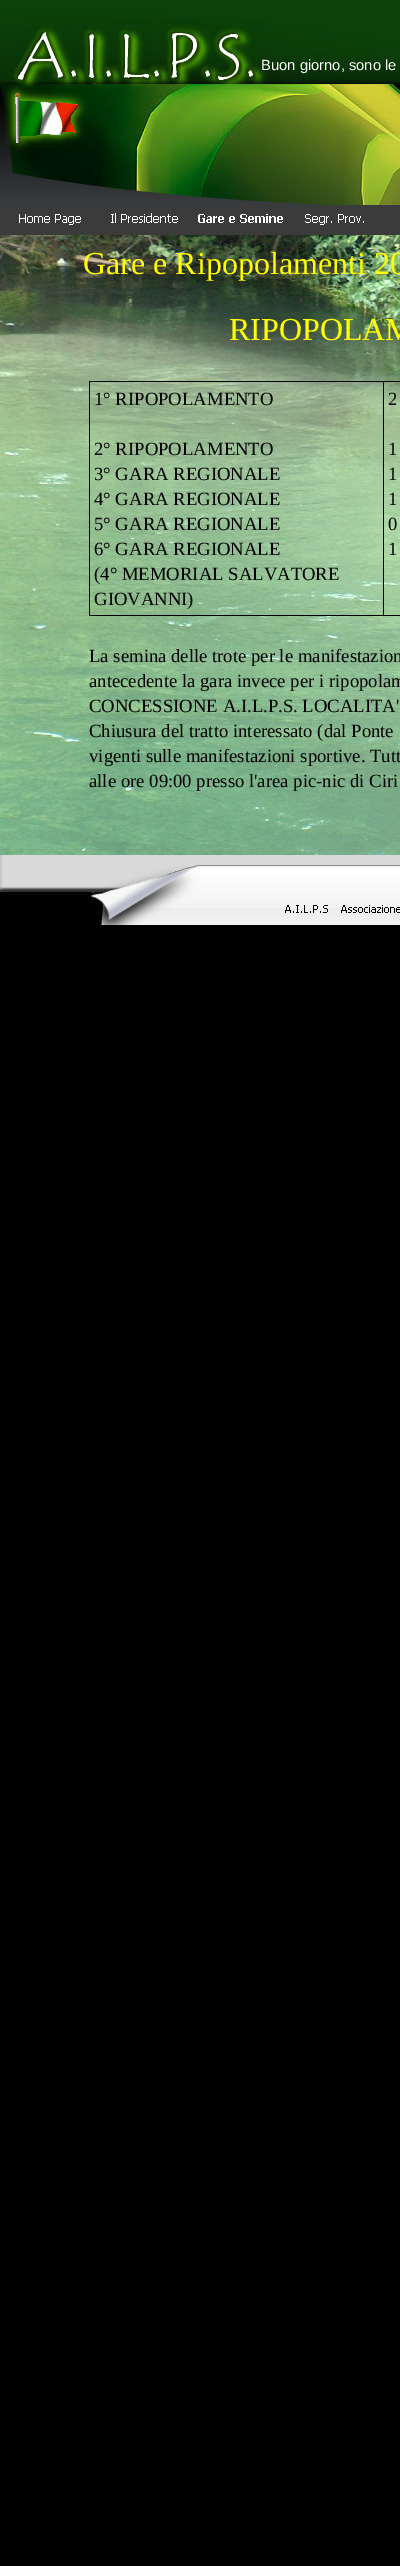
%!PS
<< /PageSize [400 2566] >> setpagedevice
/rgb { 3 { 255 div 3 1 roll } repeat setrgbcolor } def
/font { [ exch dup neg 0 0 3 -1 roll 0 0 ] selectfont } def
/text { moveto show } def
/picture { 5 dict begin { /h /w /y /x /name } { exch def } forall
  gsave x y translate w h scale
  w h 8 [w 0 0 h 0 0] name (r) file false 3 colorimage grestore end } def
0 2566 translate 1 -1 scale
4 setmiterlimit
0 0 0 rgb
0 0 400 2566 rectfill
(img_01.rgb) 0 0 400 205 picture
59 59 59 rgb
0 205 400 30 rectfill
(img_02.rgb) 19 214 62 11 picture
(img_03.rgb) 111 213 67 10 picture
(img_04.rgb) 198 214 85 9 picture
(img_05.rgb) 305 214 59 11 picture
(img_06.rgb) 0 235 400 620 picture
0 0 0 rgb
383 381 17 1 rectfill
383 615 17 1 rectfill
383 381 1 235 rectfill
89 381 295 1 rectfill
89 615 295 1 rectfill
89 381 1 235 rectfill
(img_07.rgb) 0 855 400 70 picture
/LiberationSans-Regular 14.75 font
255 255 255 rgb
(Buon giorno, sono le) 261 70 text
/LiberationSerif-Regular 32 font
255 255 0 rgb
(Gare e Ripopolamenti 20) 83 274 text
(RIPOPOLAM) 229 340 text
/LiberationSerif-Regular 18.7 font
0 0 0 rgb
(1° RIPOPOLAMENTO) 94 405 text
(2° RIPOPOLAMENTO) 94 455 text
(3° GARA REGIONALE) 94 480 text
(4° GARA REGIONALE) 94 505 text
(5° GARA REGIONALE) 94 530 text
(6° GARA REGIONALE) 94 555 text
(\(4° MEMORIAL SALVATORE) 94 580 text
(GIOVANNI\)) 94 605 text
(2) 388 405 text
(1) 388 455 text
(1) 388 480 text
(1) 388 505 text
(0) 388 530 text
(1) 388 555 text
(La semina delle trote per le manifestazion) 89 662 text
(antecedente la gara invece per i ripopolam) 89 687 text
(CONCESSIONE A.I.L.P.S. LOCALITA') 89 712 text
(Chiusura del tratto interessato \(dal Ponte) 89 737 text
(vigenti sulle manifestazioni sportive. Tutt) 89 762 text
(alle ore 09:00 presso l'area pic-nic di Ciri) 89 787 text
showpage
